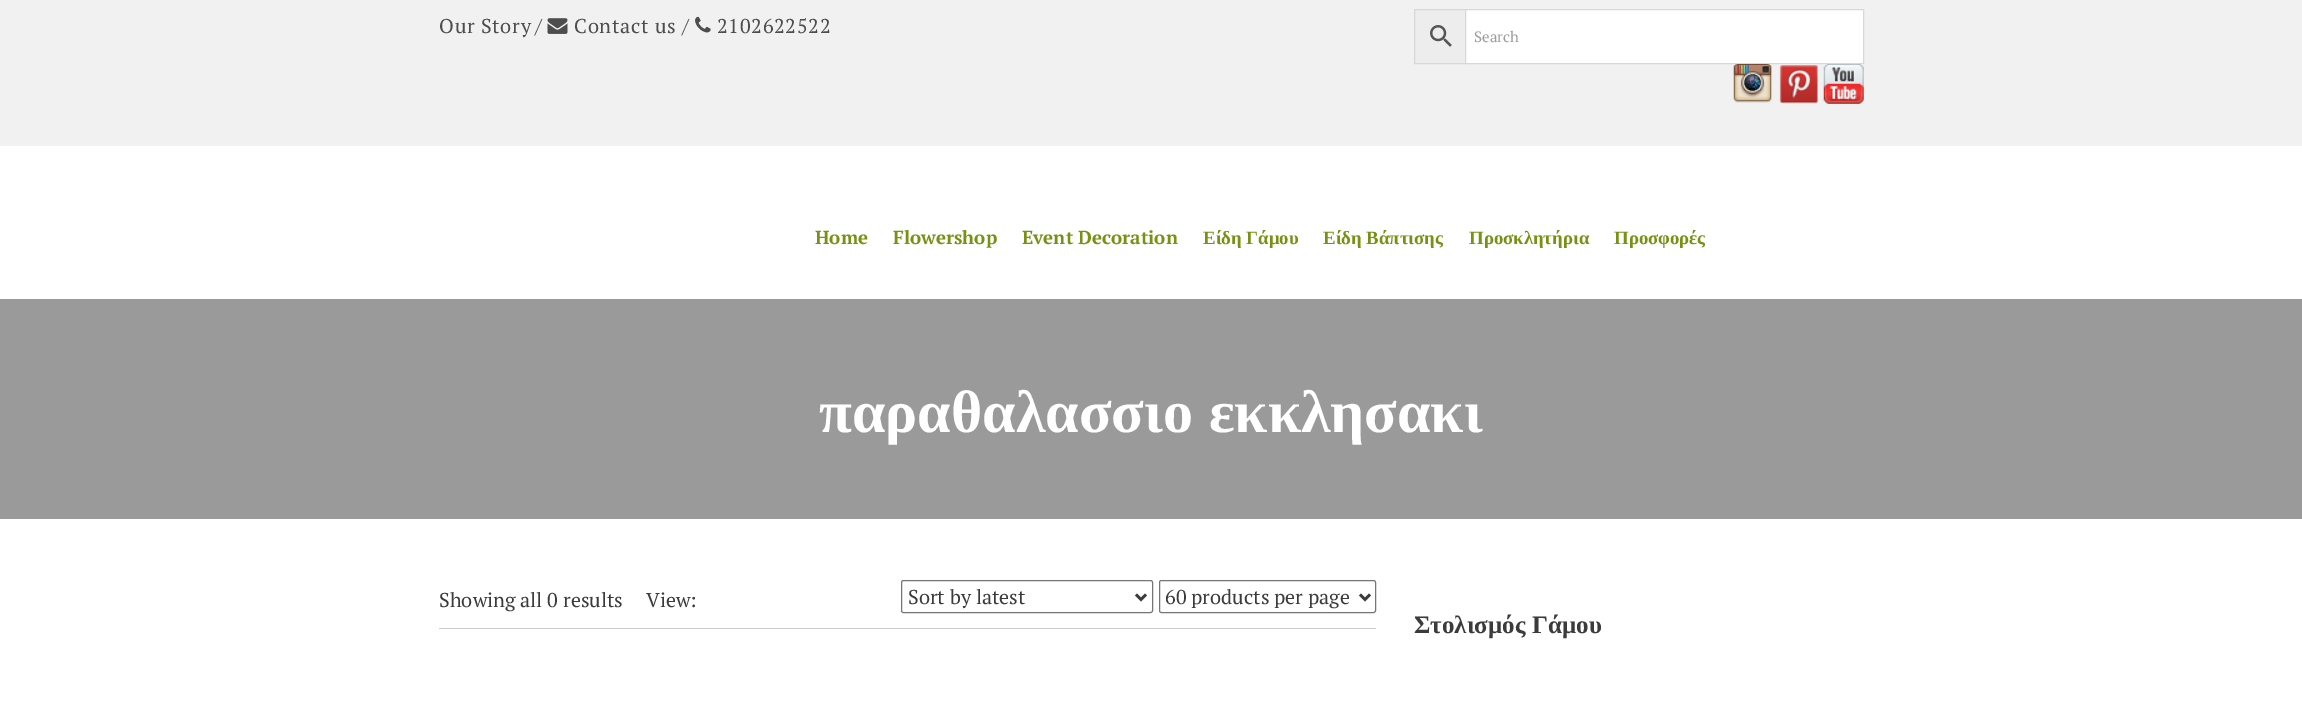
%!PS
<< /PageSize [2302 720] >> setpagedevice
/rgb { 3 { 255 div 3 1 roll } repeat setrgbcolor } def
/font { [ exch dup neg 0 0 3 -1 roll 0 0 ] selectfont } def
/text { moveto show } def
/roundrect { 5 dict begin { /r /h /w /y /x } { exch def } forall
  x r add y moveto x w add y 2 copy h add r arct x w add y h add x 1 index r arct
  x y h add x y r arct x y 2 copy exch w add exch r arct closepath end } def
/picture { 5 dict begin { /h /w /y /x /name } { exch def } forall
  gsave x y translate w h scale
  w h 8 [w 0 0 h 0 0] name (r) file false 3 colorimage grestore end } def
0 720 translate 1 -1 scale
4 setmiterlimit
255 255 255 rgb
0 0 2302 720 rectfill
241 241 241 rgb
0 0 2302 146 rectfill
(img_01.rgb) 547 18 21 16 picture
(img_02.rgb) 695 16 16 17 picture
237 237 237 rgb
1414.5 9.5 moveto 51 0 rlineto 0 54 rlineto -51 0 rlineto closepath gsave fill grestore
216 216 216 rgb
stroke
(img_03.rgb) 1430 25 22 22 picture
255 255 255 rgb
1465.5 9.5 moveto 398 0 rlineto 0 54 rlineto -398 0 rlineto closepath gsave fill grestore
216 216 216 rgb
stroke
(img_04.rgb) 1733 64 39 39 picture
(img_05.rgb) 1779 64 39 40 picture
(img_06.rgb) 1823 64 41 40 picture
154 154 154 rgb
0 299 2302 220 rectfill
204 204 204 rgb
439 628 937 1 rectfill
118 118 118 rgb
901.5 580.5 251 32 2 roundrect stroke
59 59 59 rgb
2.5 setlinewidth
1136 594.5 moveto 5 5 rlineto 5 -5 rlineto stroke
118 118 118 rgb
1 setlinewidth
1159.5 580.5 216 32 2 roundrect stroke
59 59 59 rgb
2.5 setlinewidth
1360 594.5 moveto 5 5 rlineto 5 -5 rlineto stroke
/PTSerif-Regular 20 font
77 77 77 rgb
439 33 moveto 0.75 0 (Our Story) ashow
535 33 moveto 0.75 0 (/) ashow
574 33 moveto 0.75 0 (Contact us /) ashow
717 33 moveto 0.75 0 (2102622522) ashow
/PTSerif-Regular 15 font
157 157 157 rgb
(Search) 1474 42 text
/PTSerif-Bold 18.75 font
117 146 19 rgb
(Home) 815 244 text
(Flowershop) 893 244 text
(Event Decoration) 1022 244 text
/LiberationSerif-Bold 18.75 font
(Είδη Γάμου) 1203 244 text
(Είδη Βάπτισης) 1323 244 text
(Προσκλητήρια) 1469 244 text
(Προσφορές) 1614 244 text
/LiberationSerif-Bold 60 font
255 255 255 rgb
819 432 moveto 1 0 32 (παραθαλασσιο εκκλησακι) widthshow
/PTSerif-Regular 20 font
59 59 59 rgb
(Showing all 0 results) 439 607 text
(View:) 646 607 text
(Sort by latest) 908 604 text
(60 products per page) 1165 604 text
/LiberationSerif-Bold 25 font
1414 633 moveto 1 0 32 (Στολισμός Γάμου) widthshow
showpage
